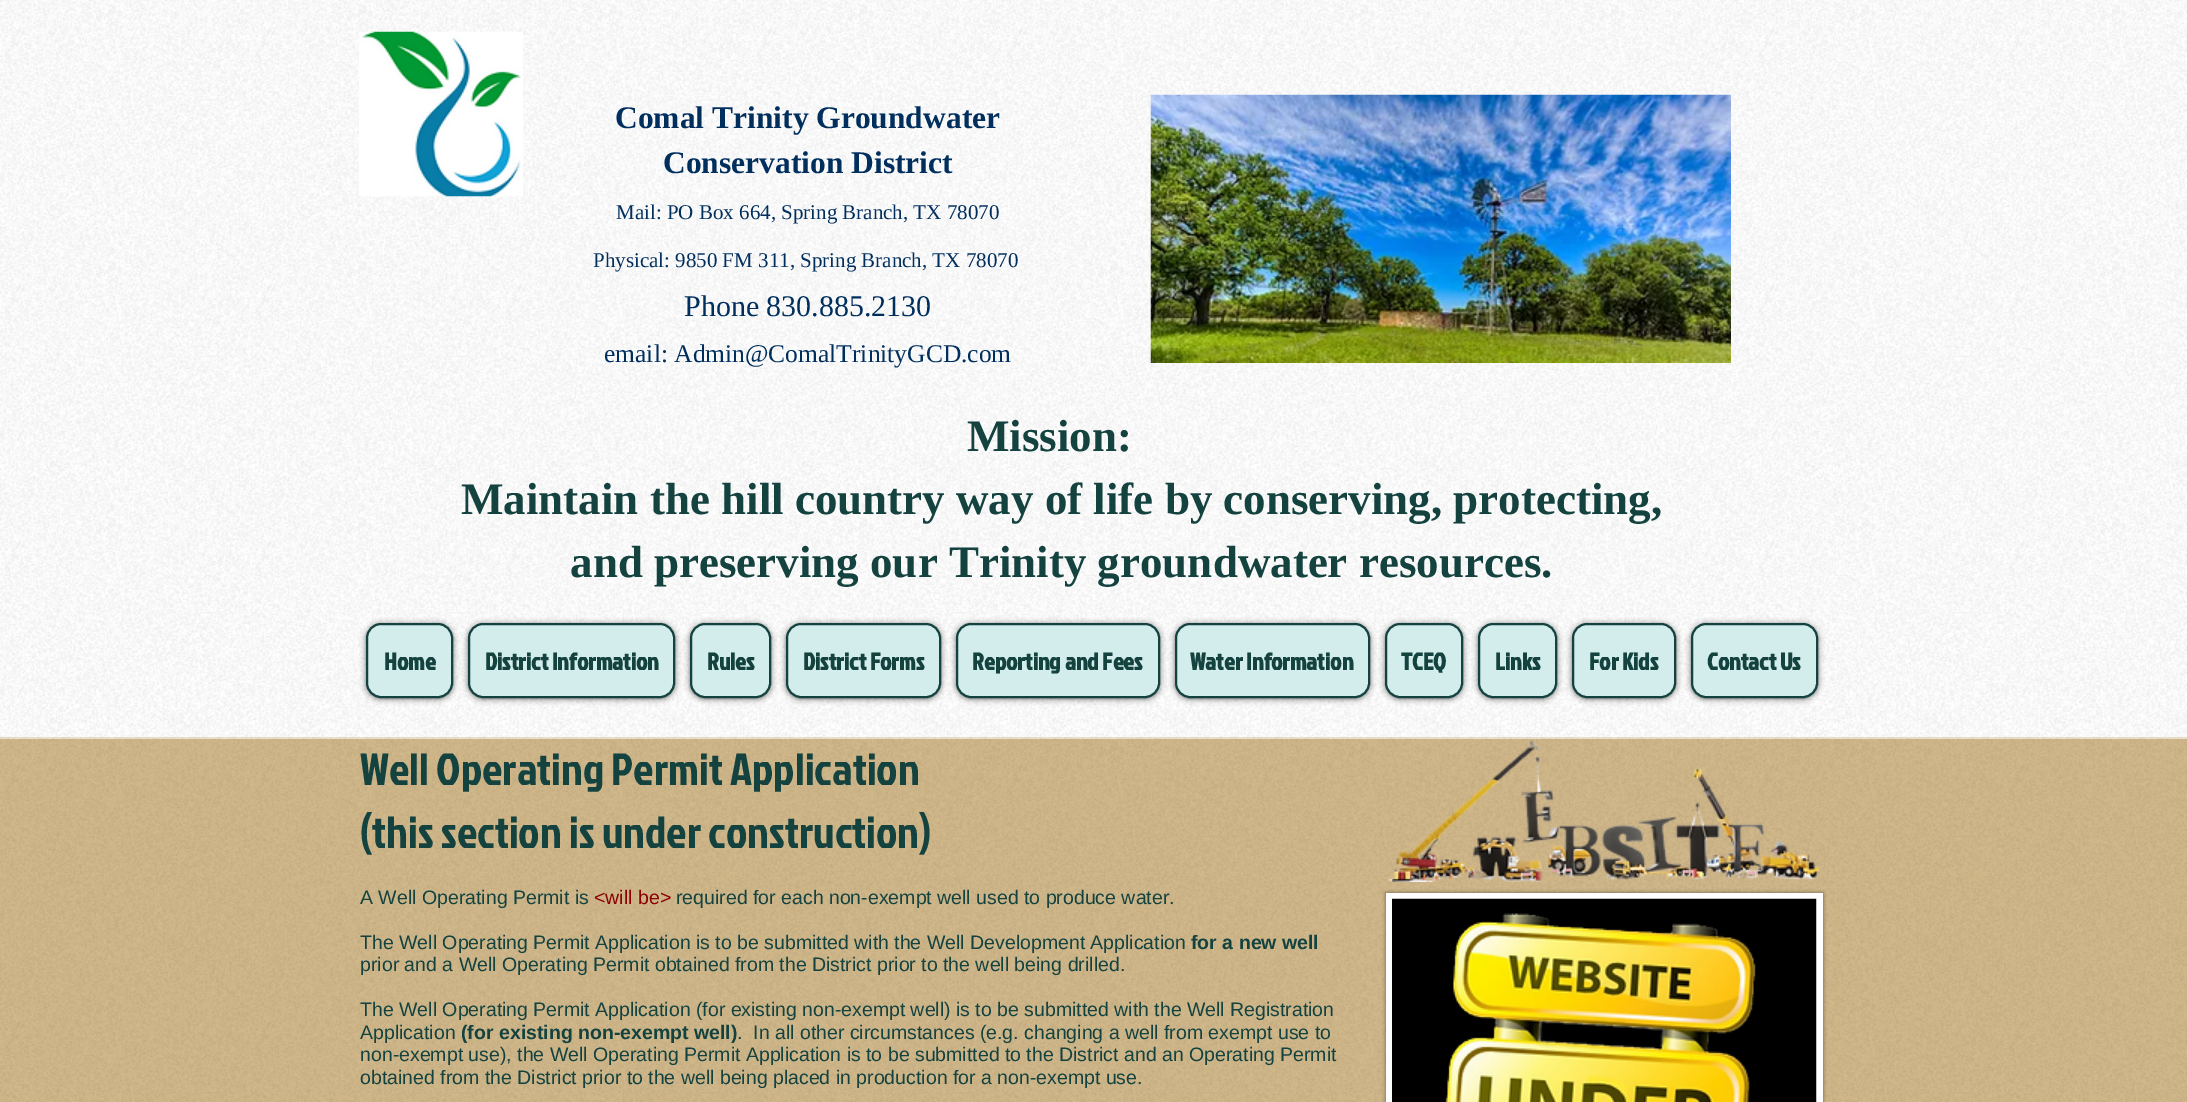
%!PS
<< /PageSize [2187 1102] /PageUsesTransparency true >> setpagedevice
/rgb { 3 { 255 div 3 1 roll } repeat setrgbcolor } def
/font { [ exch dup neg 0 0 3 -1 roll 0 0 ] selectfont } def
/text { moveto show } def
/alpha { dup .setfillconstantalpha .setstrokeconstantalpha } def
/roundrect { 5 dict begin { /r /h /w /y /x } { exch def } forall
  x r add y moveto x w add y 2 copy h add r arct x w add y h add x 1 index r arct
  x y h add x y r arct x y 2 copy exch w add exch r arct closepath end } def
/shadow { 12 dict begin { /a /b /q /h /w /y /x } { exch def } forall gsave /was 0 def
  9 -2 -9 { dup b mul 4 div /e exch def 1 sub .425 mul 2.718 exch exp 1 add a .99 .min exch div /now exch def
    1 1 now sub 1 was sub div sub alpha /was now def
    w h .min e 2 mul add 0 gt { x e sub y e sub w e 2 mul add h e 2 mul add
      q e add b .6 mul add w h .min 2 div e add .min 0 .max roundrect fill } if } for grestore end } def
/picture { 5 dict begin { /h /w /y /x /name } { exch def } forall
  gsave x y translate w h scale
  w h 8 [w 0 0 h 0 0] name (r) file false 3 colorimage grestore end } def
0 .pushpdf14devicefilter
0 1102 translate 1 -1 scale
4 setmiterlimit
255 255 255 rgb
0 0 2187 1102 rectfill
(img_01.rgb) 0 0 2187 737 picture
(img_02.rgb) 359 31 164 166 picture
(img_03.rgb) 1150 94 581 269 picture
0 0 0 rgb
366 624 87 75 15 3 0.6 shadow
211 237 236 rgb
367 624 85 73 14 roundrect gsave fill grestore
20 66 63 rgb
2 setlinewidth
stroke
0 0 0 rgb
468 624 207 75 15 3 0.6 shadow
211 237 236 rgb
469 624 205 73 14 roundrect gsave fill grestore
20 66 63 rgb
stroke
0 0 0 rgb
690 624 81 75 15 3 0.6 shadow
211 237 236 rgb
691 624 79 73 14 roundrect gsave fill grestore
20 66 63 rgb
stroke
0 0 0 rgb
786 624 155 75 15 3 0.6 shadow
211 237 236 rgb
787 624 153 73 14 roundrect gsave fill grestore
20 66 63 rgb
stroke
0 0 0 rgb
956 624 204 75 15 3 0.6 shadow
211 237 236 rgb
957 624 202 73 14 roundrect gsave fill grestore
20 66 63 rgb
stroke
0 0 0 rgb
1175 624 195 75 15 3 0.6 shadow
211 237 236 rgb
1176 624 193 73 14 roundrect gsave fill grestore
20 66 63 rgb
stroke
0 0 0 rgb
1385 624 78 75 15 3 0.6 shadow
211 237 236 rgb
1386 624 76 73 14 roundrect gsave fill grestore
20 66 63 rgb
stroke
0 0 0 rgb
1478 624 79 75 15 3 0.6 shadow
211 237 236 rgb
1479 624 77 73 14 roundrect gsave fill grestore
20 66 63 rgb
stroke
0 0 0 rgb
1572 624 104 75 15 3 0.6 shadow
211 237 236 rgb
1573 624 102 73 14 roundrect gsave fill grestore
20 66 63 rgb
stroke
0 0 0 rgb
1691 624 127 75 15 3 0.6 shadow
211 237 236 rgb
1692 624 125 73 14 roundrect gsave fill grestore
20 66 63 rgb
stroke
209 184 138 rgb
0 739 2187 363 rectfill
236 226 207 rgb
0 737 2187 2 rectfill
(img_04.rgb) 0 736 2187 366 picture
(img_05.rgb) 1387 740 433 142 picture
0 0 0 rgb
1386 893 437 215 0 2 0.5 shadow
255 255 255 rgb
1386 893 437 209 rectfill
(img_06.rgb) 1392 898 425 204 picture
/LiberationSerif-Bold 31.5 font
0 46 93 rgb
(Comal Trinity Groundwater) 615 128 text
(Conservation District) 663 173 text
/LiberationSerif-Regular 21 font
(Mail: PO Box 664, Spring Branch, TX 78070) 616 219 text
(Physical: 9850 FM 311, Spring Branch, TX 78070) 593 267 text
/LiberationSerif-Regular 30 font
(Phone 830.885.2130) 684 316 text
/LiberationSerif-Regular 25.5 font
(email: Admin@ComalTrinityGCD.com) 604 362 text
/LiberationSerif-Bold 45 font
20 66 63 rgb
(Mission:) 967 451 text
(Maintain the hill country way of life by conserving, protecting,) 461 514 text
(and preserving our Trinity groundwater resources.) 570 577 text
/JockeyOne-Bold 24 font
(Home) 384 670 text
(District Information) 485 670 text
(Rules) 707 670 text
(District Forms) 803 670 text
(Reporting and Fees) 972 670 text
(Water Information) 1190 670 text
(TCEQ) 1401 670 text
(Links) 1495 670 text
(For Kids) 1589 670 text
(Contact Us) 1707 670 text
/JockeyOne-Regular 45 font
(Well Operating Permit Application) 360 785 text
(\(this section is under construction\)) 360 848 text
/LiberationSans-Regular 19.5 font
(A Well Operating Permit is) 360 904 text
139 0 0 rgb
(<will be>) 594 904 text
20 66 63 rgb
(required for each non-exempt well used to produce water.) 676 904 text
(The Well Operating Permit Application is to be submitted with the Well Development Application) 360 949 text
/LiberationSans-Bold 19.5 font
(for a new well) 1191 949 text
/LiberationSans-Regular 19.5 font
(prior and a Well Operating Permit obtained from the District prior to the well being drilled.) 360 971 text
(The Well Operating Permit Application \(for existing non-exempt well\) is to be submitted with the Well Registration) 360 1016 text
(Application) 360 1039 text
/LiberationSans-Bold 19.5 font
(\(for existing non-exempt well\)) 461 1039 text
/LiberationSans-Regular 19.5 font
(.  In all other circumstances \(e.g. changing a well from exempt use to) 737 1039 text
(non-exempt use\), the Well Operating Permit Application is to be submitted to the District and an Operating Permit) 360 1061 text
(obtained from the District prior to the well being placed in production for a non-exempt use.) 360 1084 text
.poppdf14devicefilter showpage
